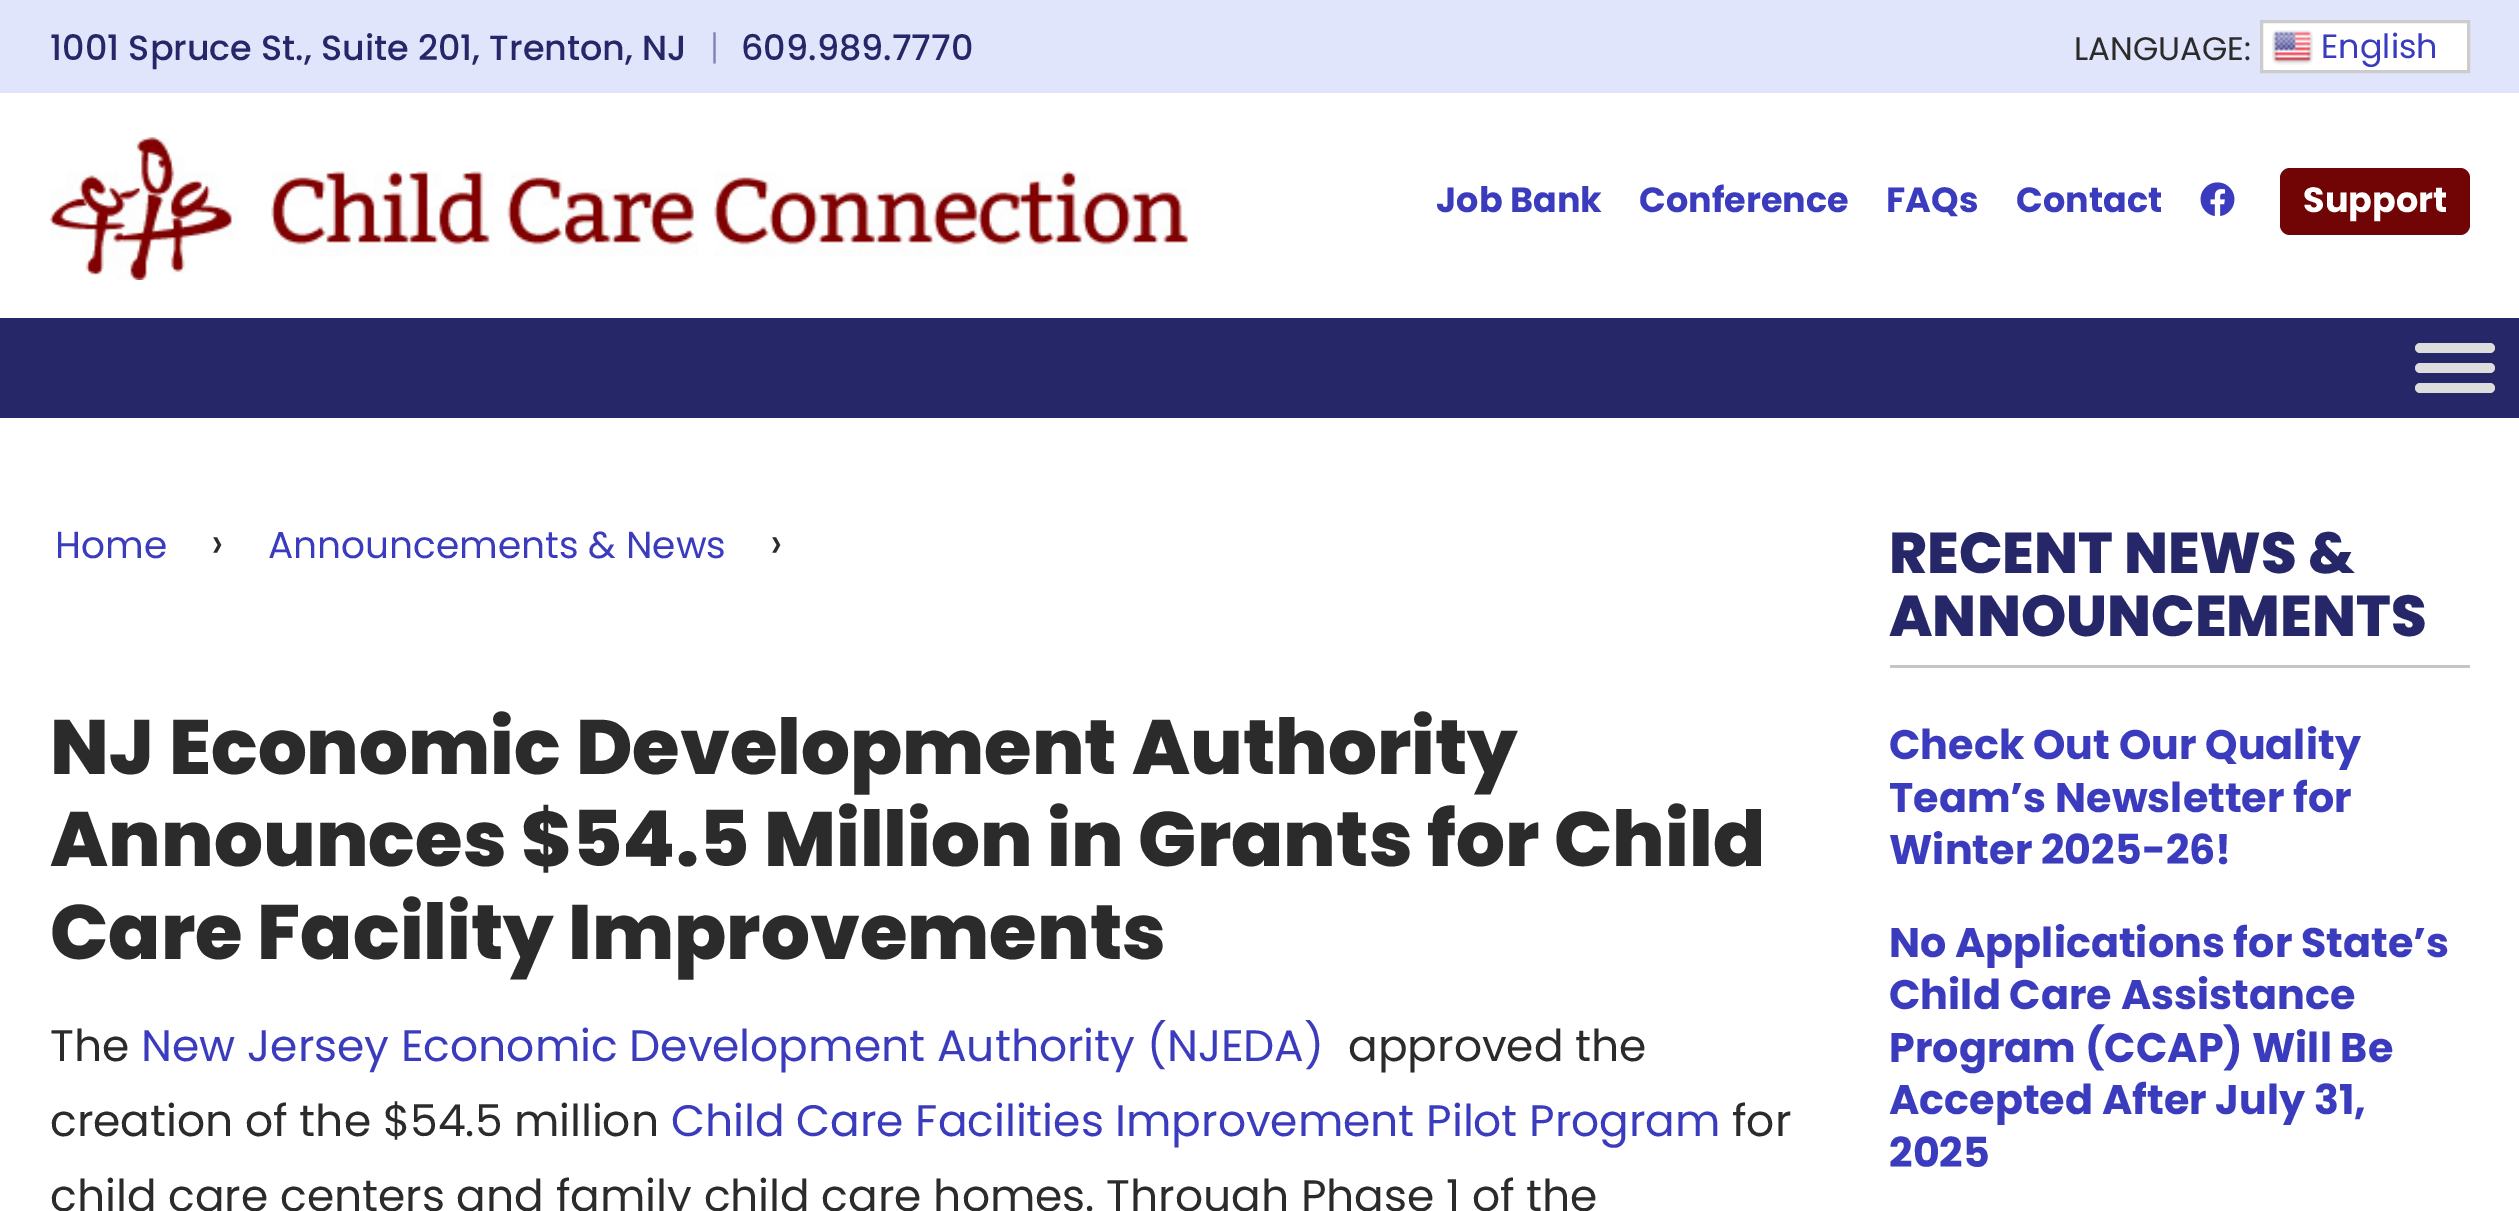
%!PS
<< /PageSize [2519 1211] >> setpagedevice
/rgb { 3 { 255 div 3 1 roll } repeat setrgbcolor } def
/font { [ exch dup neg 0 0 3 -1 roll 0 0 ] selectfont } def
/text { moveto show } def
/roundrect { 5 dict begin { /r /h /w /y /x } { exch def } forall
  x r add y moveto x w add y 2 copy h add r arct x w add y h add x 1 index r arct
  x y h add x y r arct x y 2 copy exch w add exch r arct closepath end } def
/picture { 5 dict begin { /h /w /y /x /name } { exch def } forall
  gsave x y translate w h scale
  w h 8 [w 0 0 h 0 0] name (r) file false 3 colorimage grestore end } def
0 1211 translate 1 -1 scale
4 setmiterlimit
255 255 255 rgb
0 0 2519 1211 rectfill
225 229 251 rgb
0 0 2519 93 rectfill
(img_01.rgb) 50 137 1138 143 picture
255 255 255 rgb
2261.5 21.5 moveto 207 0 rlineto 0 50 rlineto -207 0 rlineto closepath gsave fill grestore
204 204 204 rgb
3 setlinewidth
stroke
(img_02.rgb) 2272 30 41 35 picture
(img_03.rgb) 2200 182 35 35 picture
113 4 4 rgb
2280 168 190 67 10 roundrect fill
38 39 105 rgb
0 318 2519 100 rectfill
221 221 221 rgb
2415 343 80 10 5 roundrect fill
2415 363 80 10 5 roundrect fill
2415 383 80 10 5 roundrect fill
197 197 197 rgb
1890 665 580 3 rectfill
/Poppins-Medium 35 font
38 39 105 rgb
(1001 Spruce St., Suite 201, Trenton, NJ) 50 60 text
/Poppins-Light 35 font
131 132 181 rgb
(|) 710 60 text
/Poppins-Medium 35 font
38 39 105 rgb
(609.989.7770) 741 60 text
/Poppins-Regular 32.5 font
43 43 43 rgb
(LANGUAGE:) 2074 60 text
/Poppins-Regular 33.5 font
58 59 189 rgb
(English) 2321 58 text
/Poppins-Bold 35 font
(Job Bank) 1436 212 text
(Conference) 1639 212 text
(FAQs) 1886 212 text
(Contact) 2016 212 text
255 255 255 rgb
(Support) 2303 212 text
/Poppins-Regular 37.5 font
58 59 189 rgb
(Home) 55 558 text
/Poppins-Regular 44 font
43 43 43 rgb
(›) 211 558 text
/Poppins-Regular 37.5 font
58 59 189 rgb
(Announcements & News) 268 558 text
/Poppins-Regular 44 font
43 43 43 rgb
(›) 770 558 text
/Poppins-ExtraBold 77 font
(NJ Economic Development Authority) 50 774 text
(Announces $54.5 Million in Grants for Child) 50 866 text
(Care Facility Improvements) 50 959 text
/Poppins-Regular 44 font
(The) 50 1061 text
58 59 189 rgb
(New Jersey Economic Development Authority \(NJEDA\)) 141 1061 text
43 43 43 rgb
(approved the) 1348 1061 text
(creation of the $54.5 million) 50 1136 text
58 59 189 rgb
(Child Care Facilities Improvement Pilot Program) 671 1136 text
43 43 43 rgb
(for) 1732 1136 text
(child care centers and family child care homes. Through Phase 1 of the) 50 1211 text
/Poppins-ExtraBold 57.6 font
38 39 105 rgb
(RECENT NEWS &) 1889 573 text
(ANNOUNCEMENTS) 1889 636 text
/Poppins-Bold 41.25 font
58 59 189 rgb
(Check Out Our Quality) 1889 759 text
(Team’s Newsletter for) 1889 812 text
(Winter 2025-26!) 1889 864 text
(No Applications for State’s) 1889 957 text
(Child Care Assistance) 1889 1009 text
(Program \(CCAP\) Will Be) 1889 1062 text
(Accepted After July 31,) 1889 1114 text
(2025) 1889 1167 text
showpage
